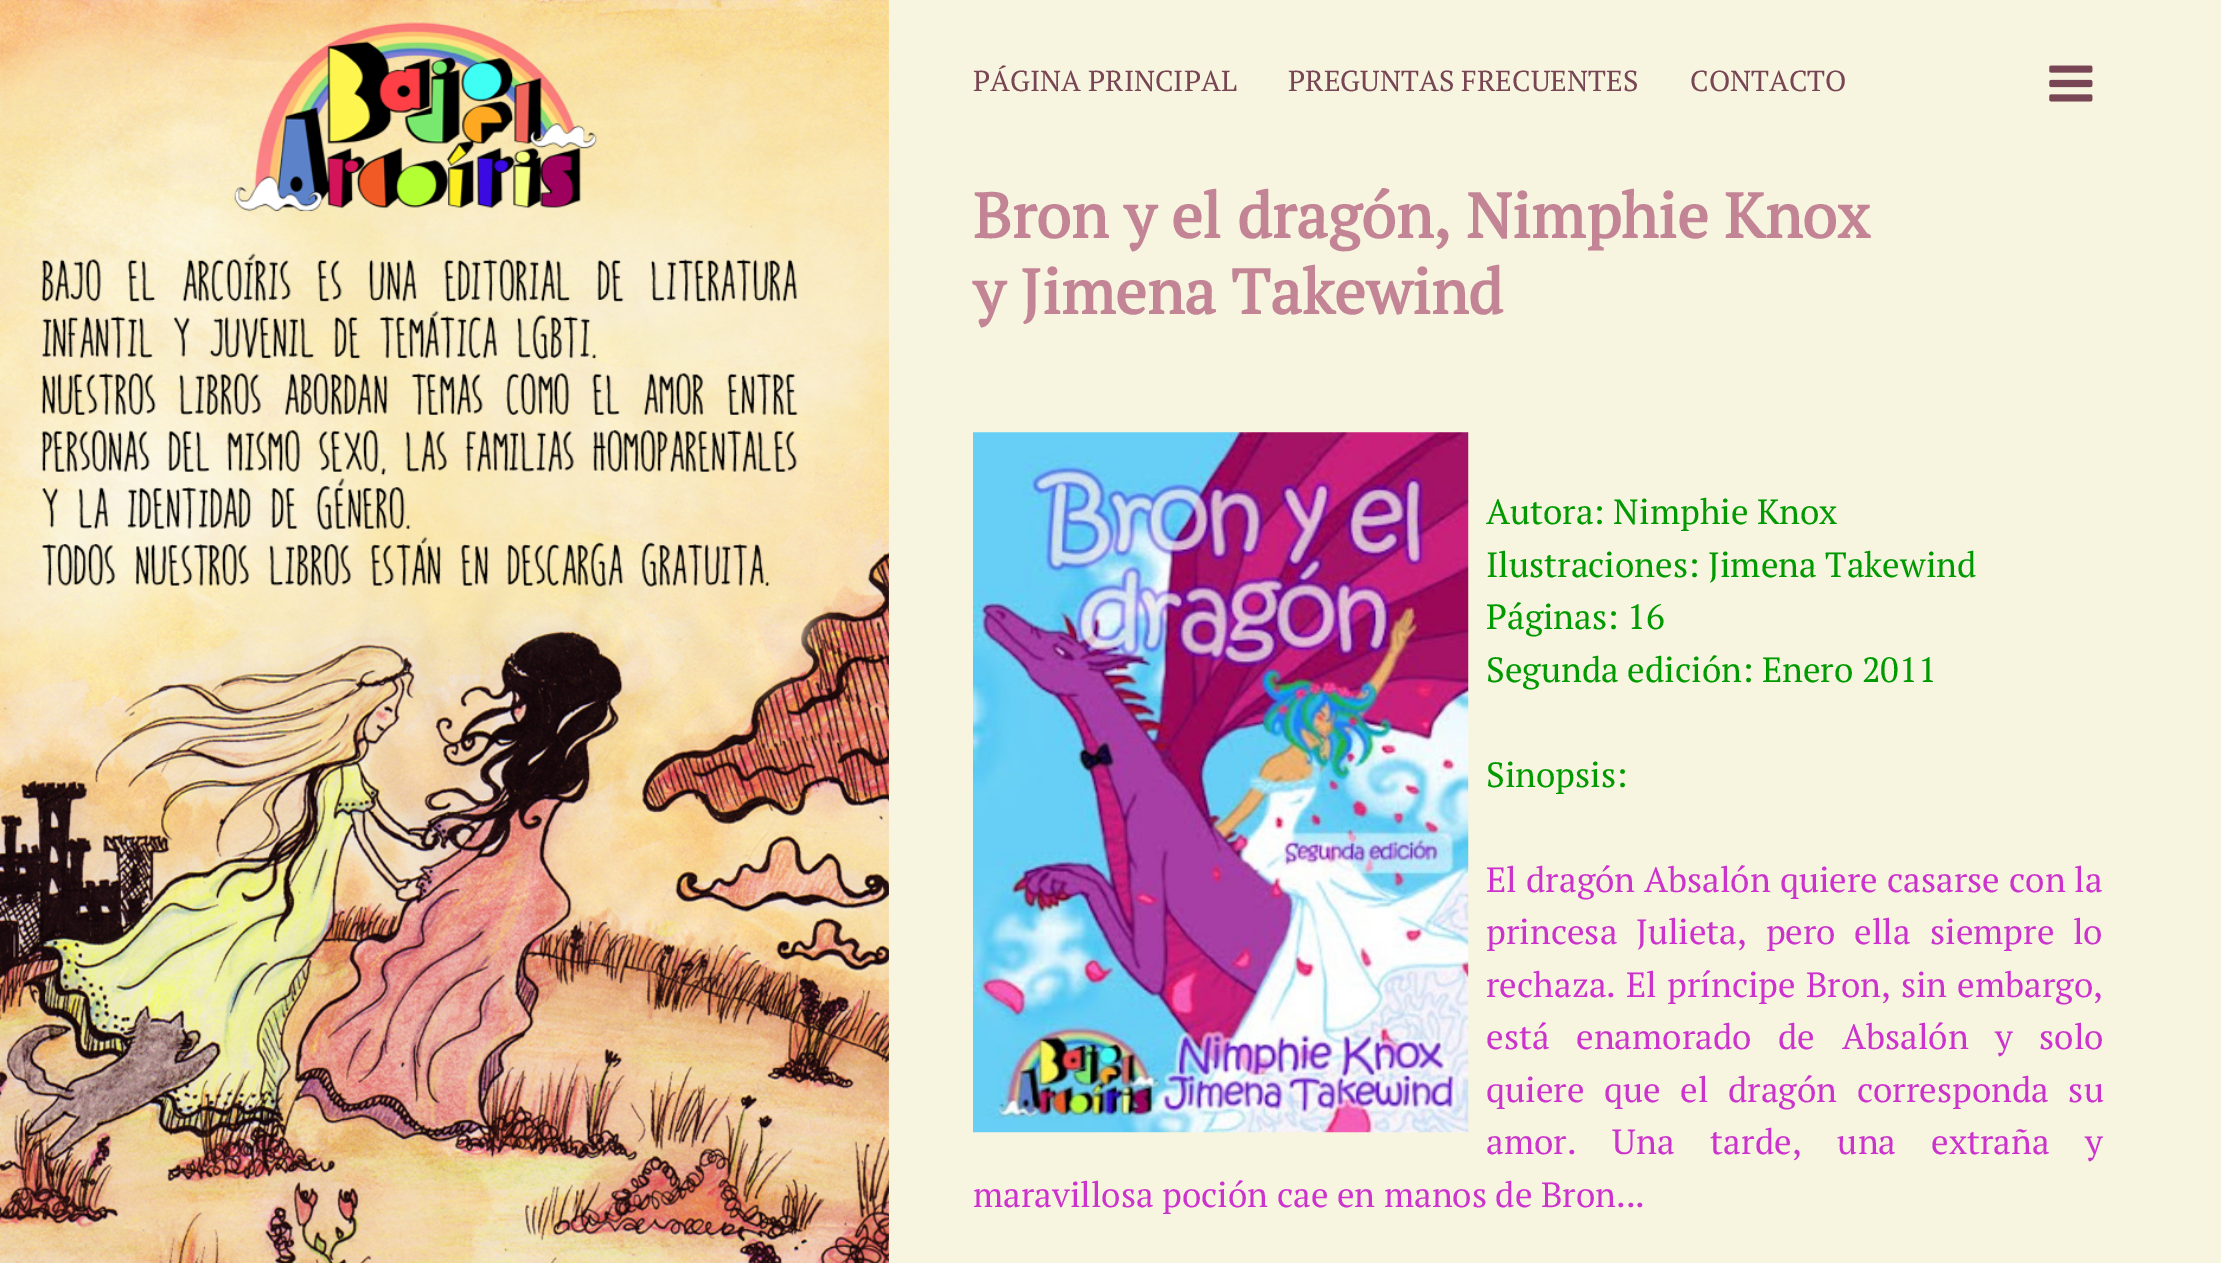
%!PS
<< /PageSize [2221 1263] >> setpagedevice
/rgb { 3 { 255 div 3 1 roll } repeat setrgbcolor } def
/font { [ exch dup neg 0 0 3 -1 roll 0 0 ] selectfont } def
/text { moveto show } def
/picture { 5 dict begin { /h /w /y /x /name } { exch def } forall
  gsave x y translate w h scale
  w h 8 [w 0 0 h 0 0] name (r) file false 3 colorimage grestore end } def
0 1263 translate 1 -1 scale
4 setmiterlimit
247 245 224 rgb
0 0 2221 1263 rectfill
(img_01.rgb) 0 0 889 1263 picture
(img_02.rgb) 2049 65 44 37 picture
(img_03.rgb) 973 432 496 701 picture
/PTSerif-Regular 28.9 font
119 69 83 rgb
(PÁGINA PRINCIPAL) 973 91 text
(PREGUNTAS FRECUENTES) 1288 91 text
(CONTACTO) 1690 91 text
/PTSerif-Bold 63 font
195 133 150 rgb
(Bron y el dragón, Nimphie Knox) 973 238 text
(y Jimena Takewind) 973 314 text
/PTSerif-Regular 35 font
0 153 0 rgb
(Autora: Nimphie Knox) 1486 524 text
(Ilustraciones: Jimena Takewind) 1486 577 text
(Páginas: 16) 1486 629 text
(Segunda edición: Enero 2011) 1486 682 text
(Sinopsis:) 1486 787 text
204 51 204 rgb
(El) 1486 892 text
1526 892 moveto 0.5 0 32 (dragón Absalón quiere casarse con la) widthshow
1486 944 moveto 10 0 32 (princesa Julieta, pero ella) widthshow
1930 944 moveto 10 0 32 (siempre lo) widthshow
1486 997 moveto 1.5 0 32 (rechaza. El príncipe Bron, sin embargo,) widthshow
1486 1049 moveto 18 0 32 (está enamorado de) widthshow
1842 1049 moveto 18 0 32 (Absalón y solo) widthshow
1486 1102 moveto 11 0 32 (quiere que el dragón corresponda su) widthshow
1486 1154 moveto 27.5 0 32 (amor. Una tarde, una) widthshow
1931 1154 moveto 27.5 0 32 (extraña y) widthshow
(maravillosa poción cae en manos de Bron...) 973 1207 text
showpage
